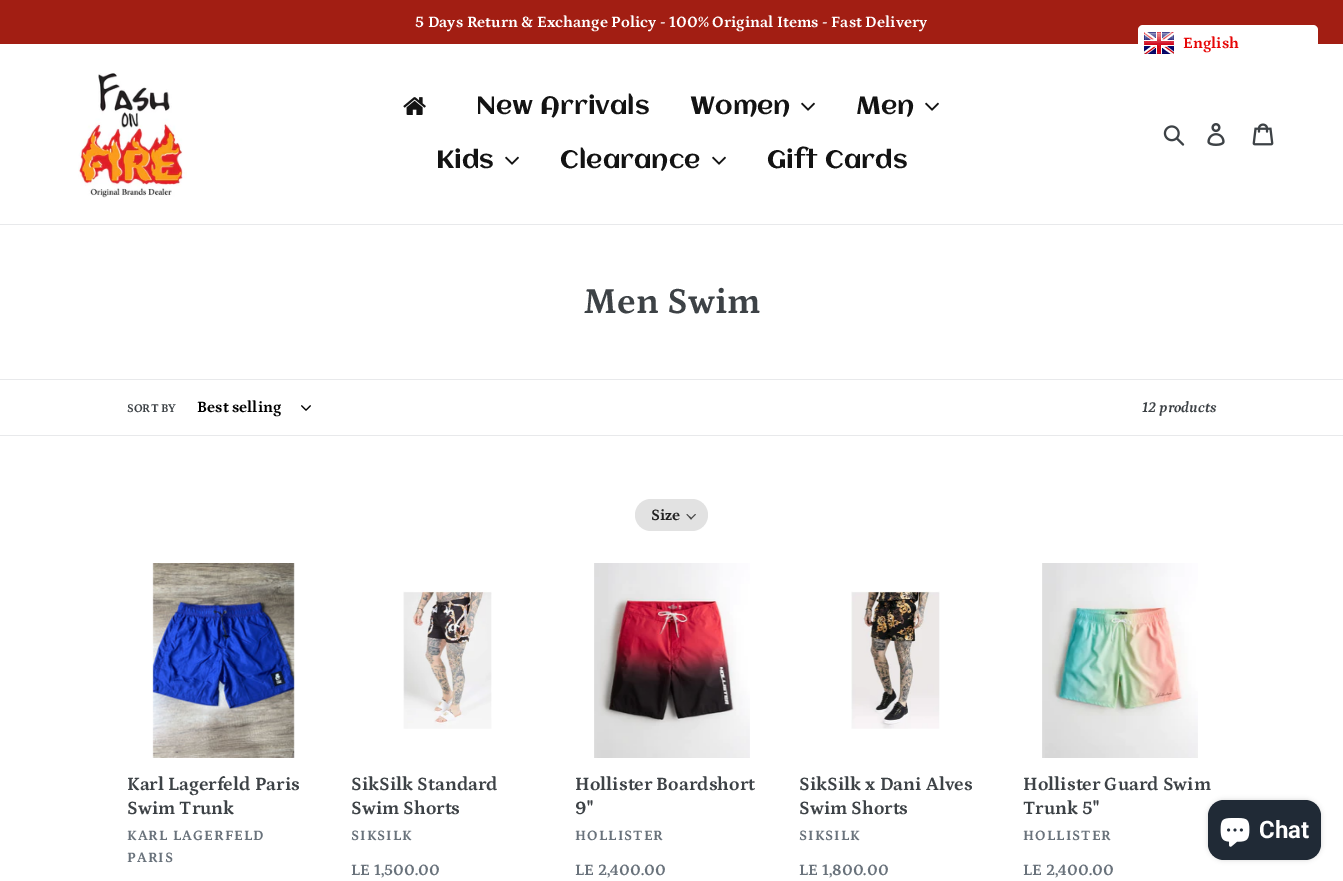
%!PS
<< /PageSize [1343 881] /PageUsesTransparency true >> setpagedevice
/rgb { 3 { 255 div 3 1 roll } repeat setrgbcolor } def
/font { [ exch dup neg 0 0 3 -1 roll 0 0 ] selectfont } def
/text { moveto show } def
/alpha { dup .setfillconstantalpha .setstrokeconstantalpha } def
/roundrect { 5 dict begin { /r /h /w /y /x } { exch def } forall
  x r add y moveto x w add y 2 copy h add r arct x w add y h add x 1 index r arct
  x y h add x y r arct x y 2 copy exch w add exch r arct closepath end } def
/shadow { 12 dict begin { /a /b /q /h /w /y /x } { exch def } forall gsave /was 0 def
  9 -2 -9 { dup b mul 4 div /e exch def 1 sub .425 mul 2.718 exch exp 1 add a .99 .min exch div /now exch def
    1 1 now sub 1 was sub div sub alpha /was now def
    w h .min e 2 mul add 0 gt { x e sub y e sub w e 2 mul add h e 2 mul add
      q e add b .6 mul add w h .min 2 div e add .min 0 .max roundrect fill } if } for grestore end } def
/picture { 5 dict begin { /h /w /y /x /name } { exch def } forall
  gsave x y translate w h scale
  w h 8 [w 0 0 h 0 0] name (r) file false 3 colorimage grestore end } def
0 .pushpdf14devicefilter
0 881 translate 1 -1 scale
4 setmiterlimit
255 255 255 rgb
0 0 1343 881 rectfill
162 30 19 rgb
0 0 1343 44 rectfill
232 233 235 rgb
0 224 1343 1 rectfill
(img_01.rgb) 78 73 109 125 picture
(img_02.rgb) 403 97 23 18 picture
(img_03.rgb) 801 102 14 9 picture
(img_03.rgb) 925 102 14 9 picture
(img_03.rgb) 505 156 14 9 picture
(img_03.rgb) 712 156 14 9 picture
(img_04.rgb) 1163 125 22 21 picture
(img_05.rgb) 1207 123 18 23 picture
(img_06.rgb) 1252 123 22 23 picture
255 255 255 rgb
1138 25 180 36 5 roundrect fill
(img_07.rgb) 1144 32 30 22 picture
232 233 235 rgb
0 379 1343 1 rectfill
0 435 1343 1 rectfill
(img_08.rgb) 301 405 10 6 picture
226 226 226 rgb
635 499 73 32 16 roundrect fill
72 72 72 rgb
695 514 moveto 1 0.5 rlineto -5 5 rlineto -0.5 -1 rlineto closepath fill
687 514 moveto 5 4.5 rlineto -1 1 rlineto -4.5 -5 rlineto closepath fill
(img_09.rgb) 152 563 143 195 picture
(img_10.rgb) 403 590 89 139 picture
(img_11.rgb) 594 563 156 195 picture
(img_12.rgb) 851 591 89 138 picture
(img_13.rgb) 1042 563 156 195 picture
0 0 0 rgb
1208 800 113 60 16 2.5 0.15 shadow
32 42 54 rgb
1208 800 113 60 16 roundrect fill
(img_14.rgb) 1220 818 30 29 picture
/Petrona-Bold 16 font
255 255 255 rgb
(5 Days Return & Exchange Policy - 100% Original Items - Fast Delivery) 415 27 text
/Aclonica-Regular 25 font
19 19 19 rgb
(New Arrivals) 476 114 text
(Women) 690 114 text
(Men) 856 114 text
(Kids) 436 168 text
(Clearance) 560 168 text
(Gift Cards) 767 168 text
/Petrona-Bold 16 font
230 6 6 rgb
(English) 1183 48 text
/Petrona-Bold 37 font
61 66 70 rgb
(Men Swim) 583 313 text
/Petrona-Bold 12 font
(SORT BY) 127 412 text
/Petrona-Bold 16 font
0 0 0 rgb
(Best selling) 197 412 text
/Petrona-BoldItalic 15 font
61 66 70 rgb
(12 products) 1142 412 text
/Petrona-Bold 16 font
34 34 34 rgb
(Size) 651 520 text
/Petrona-Bold 19 font
61 66 70 rgb
(Karl Lagerfeld Paris) 127 790 text
(Swim Trunk) 127 814 text
/Petrona-Bold 14.5 font
105 114 123 rgb
127 840 moveto 1 0 (KARL LAGERFELD) ashow
127 862 moveto 1 0 (PARIS) ashow
/Petrona-Bold 19 font
61 66 70 rgb
(SikSilk Standard) 351 790 text
(Swim Shorts) 351 814 text
/Petrona-Bold 14.5 font
105 114 123 rgb
351 840 moveto 1 0 (SIKSILK) ashow
/Petrona-Bold 16 font
(LE 1,500.00) 351 875 text
/Petrona-Bold 19 font
61 66 70 rgb
(Hollister Boardshort) 575 790 text
(9") 575 814 text
/Petrona-Bold 14.5 font
105 114 123 rgb
575 840 moveto 1 0 (HOLLISTER) ashow
/Petrona-Bold 16 font
(LE 2,400.00) 575 875 text
/Petrona-Bold 19 font
61 66 70 rgb
(SikSilk x Dani Alves) 799 790 text
(Swim Shorts) 799 814 text
/Petrona-Bold 14.5 font
105 114 123 rgb
799 840 moveto 1 0 (SIKSILK) ashow
/Petrona-Bold 16 font
(LE 1,800.00) 799 875 text
/Petrona-Bold 19 font
61 66 70 rgb
(Hollister Guard Swim) 1023 790 text
(Trunk 5") 1023 814 text
/Petrona-Bold 14.5 font
105 114 123 rgb
1023 840 moveto 1 0 (HOLLISTER) ashow
/Petrona-Bold 16 font
(LE 2,400.00) 1023 875 text
/Roboto-Bold 24 font
255 255 255 rgb
(Chat) 1259 838 text
.poppdf14devicefilter showpage
